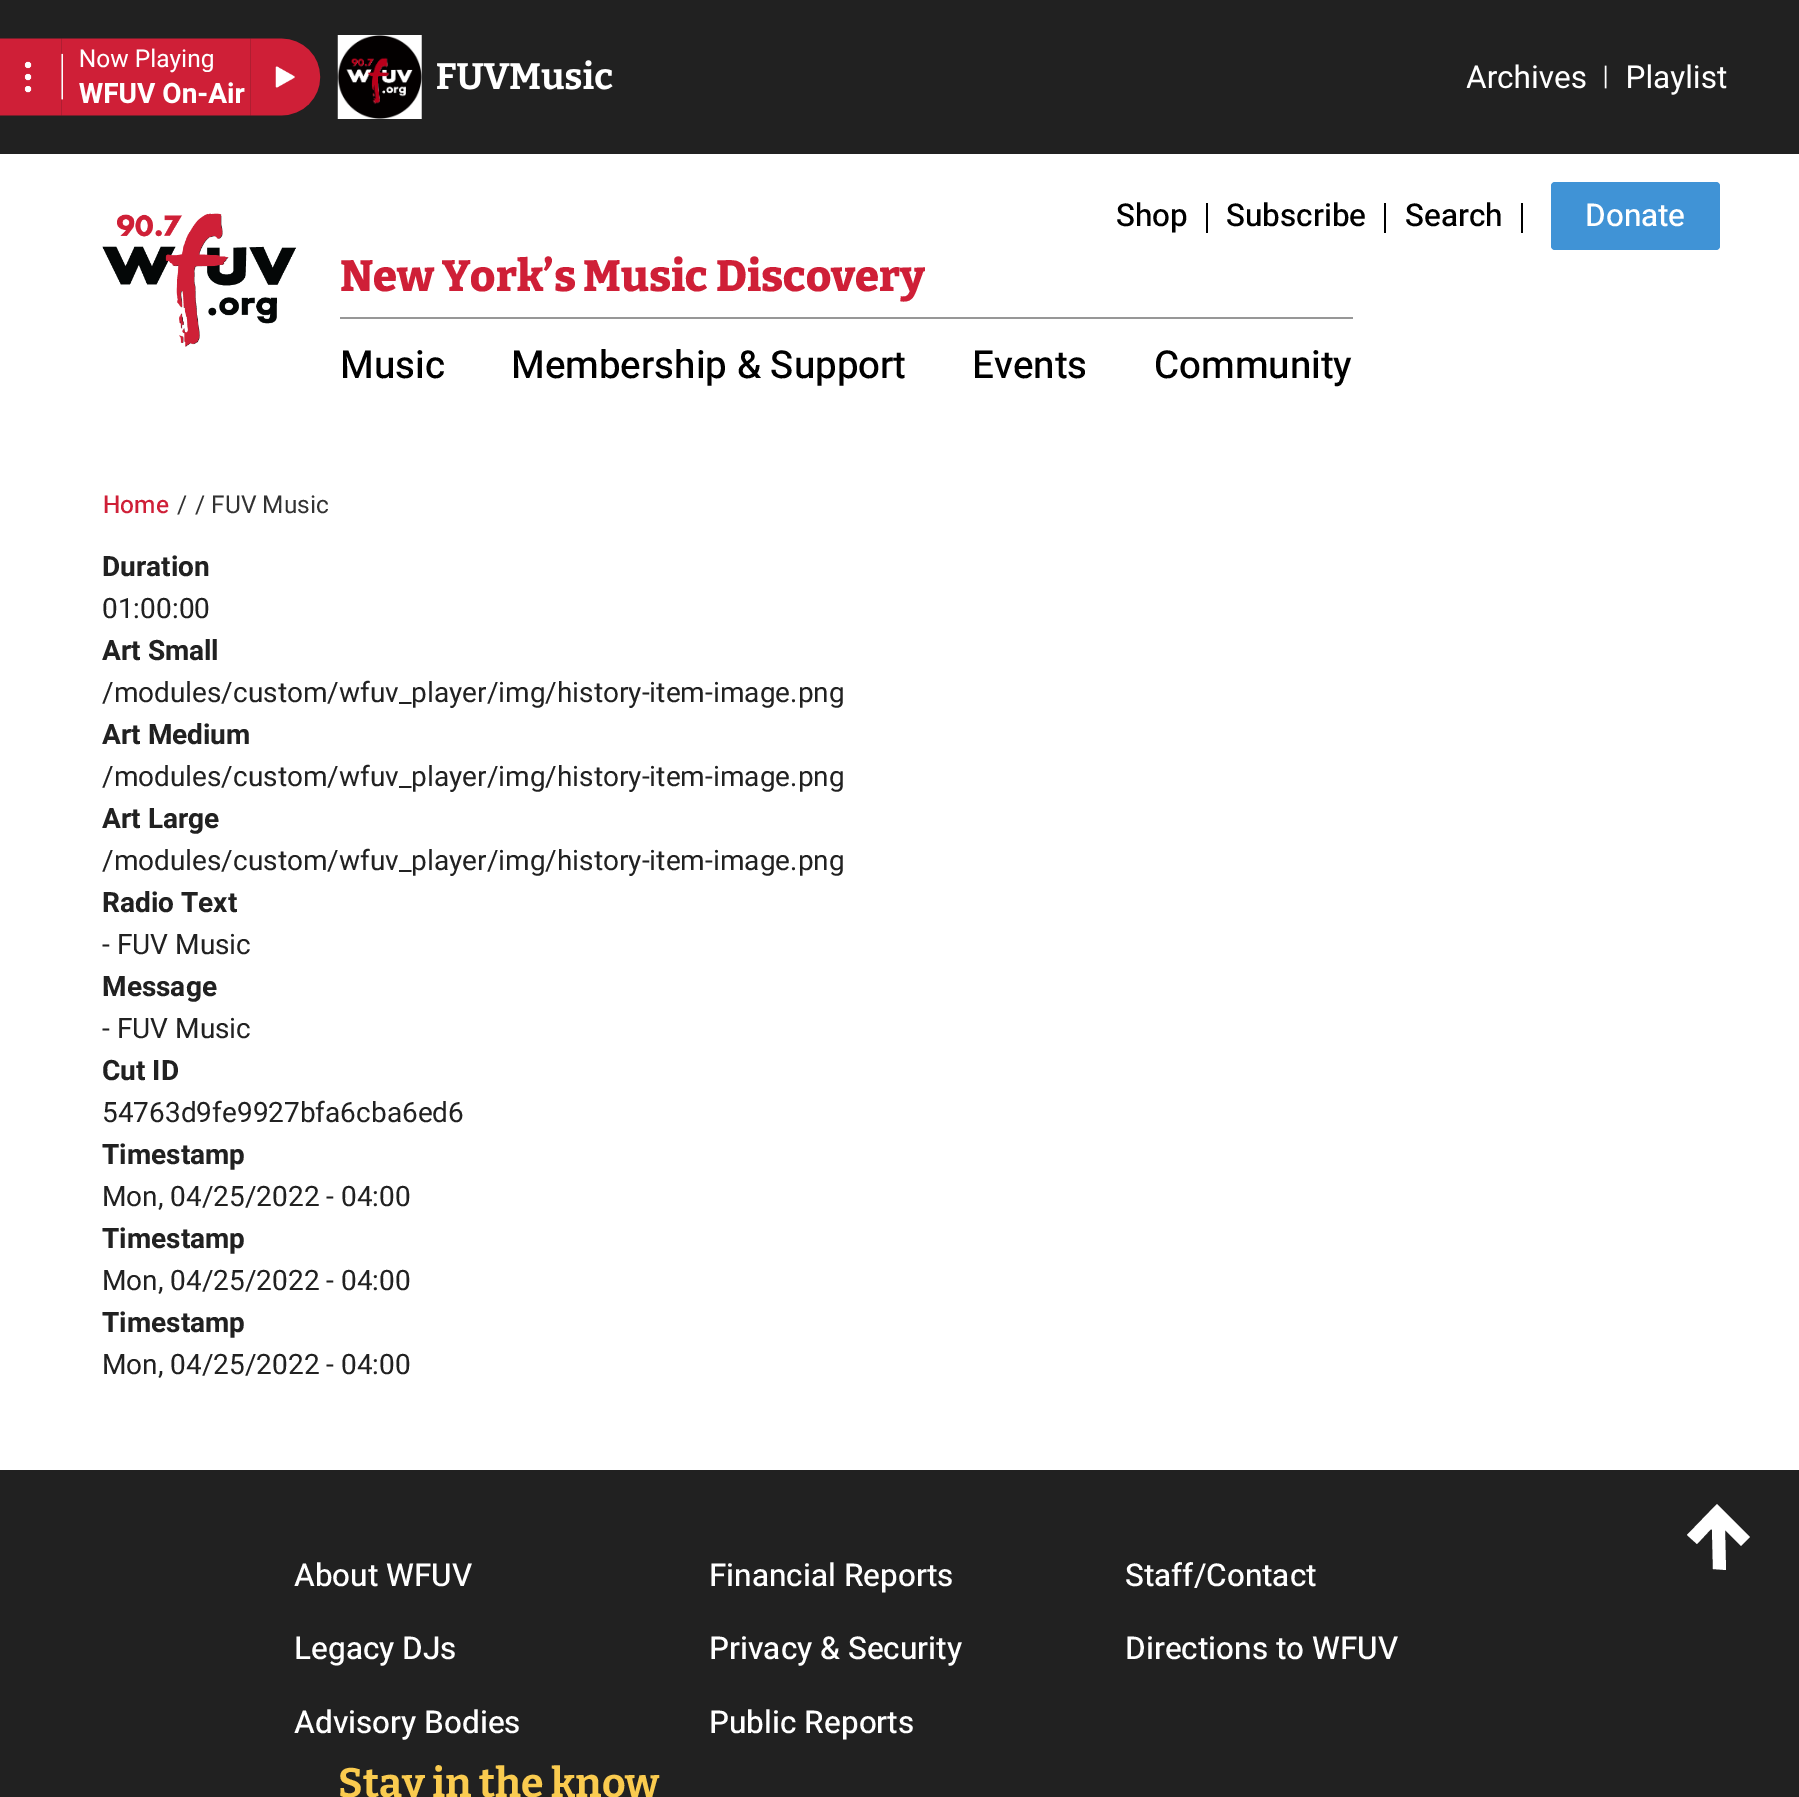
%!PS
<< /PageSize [1799 1797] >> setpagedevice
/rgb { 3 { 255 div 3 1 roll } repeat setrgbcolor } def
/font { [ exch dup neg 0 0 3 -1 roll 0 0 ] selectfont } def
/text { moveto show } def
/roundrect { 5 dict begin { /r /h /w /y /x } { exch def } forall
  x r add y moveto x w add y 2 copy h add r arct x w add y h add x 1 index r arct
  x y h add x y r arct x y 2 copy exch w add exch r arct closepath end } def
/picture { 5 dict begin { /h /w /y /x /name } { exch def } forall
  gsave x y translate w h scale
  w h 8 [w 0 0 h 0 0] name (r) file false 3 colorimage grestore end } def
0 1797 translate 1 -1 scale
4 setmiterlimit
255 255 255 rgb
0 0 1799 1797 rectfill
(img_01.rgb) 0 0 1799 154 picture
(img_02.rgb) 102 213 195 134 picture
0 0 0 rgb
1206 203 2 30 rectfill
1384 203 2 30 rectfill
1521 203 2 30 rectfill
64 147 214 rgb
1551 182 169 68 4 roundrect fill
151 151 151 rgb
340 317 1013 2 rectfill
33 33 33 rgb
0 1470 1799 327 rectfill
255 255 255 rgb
1717 1504 moveto 33 33 rlineto -9 9 rlineto -16 -16 rlineto 1 40 rlineto -13 -1 rlineto -1 -39 rlineto -1 -1 rlineto -14 15 rlineto -10 -9 rlineto closepath fill
/Heebo-Medium 31.5 font
0 0 0 rgb
(Shop) 1116 226 text
(Subscribe) 1226 226 text
(Search) 1405 226 text
255 255 255 rgb
(Donate) 1585 226 text
/Bitter-ExtraBold 43.75 font
207 31 55 rgb
(New York’s Music Discovery) 340 291 text
/Heebo-Medium 38.5 font
0 0 0 rgb
(Music) 340 378 text
(Membership & Support) 511 378 text
(Events) 972 378 text
(Community) 1154 378 text
/Heebo-Medium 24.5 font
207 31 55 rgb
(Home) 103 513 text
/Heebo-Regular 24.5 font
50 50 50 rgb
(/) 177 513 text
(/ FUV Music) 195 513 text
/Heebo-Bold 28 font
33 33 33 rgb
(Duration) 102 576 text
/Heebo-Regular 28 font
(01:00:00) 102 618 text
/Heebo-Bold 28 font
(Art Small) 102 660 text
/Heebo-Regular 28 font
(/modules/custom/wfuv_player/img/history-item-image.png) 102 702 text
/Heebo-Bold 28 font
(Art Medium) 102 744 text
/Heebo-Regular 28 font
(/modules/custom/wfuv_player/img/history-item-image.png) 102 786 text
/Heebo-Bold 28 font
(Art Large) 102 828 text
/Heebo-Regular 28 font
(/modules/custom/wfuv_player/img/history-item-image.png) 102 870 text
/Heebo-Bold 28 font
(Radio Text) 102 912 text
/Heebo-Regular 28 font
(- FUV Music) 102 954 text
/Heebo-Bold 28 font
(Message) 102 996 text
/Heebo-Regular 28 font
(- FUV Music) 102 1038 text
/Heebo-Bold 28 font
(Cut ID) 102 1080 text
/Heebo-Regular 28 font
(54763d9fe9927bfa6cba6ed6) 102 1122 text
/Heebo-Bold 28 font
(Timestamp) 102 1164 text
/Heebo-Regular 28 font
(Mon, 04/25/2022 - 04:00) 102 1206 text
/Heebo-Bold 28 font
(Timestamp) 102 1248 text
/Heebo-Regular 28 font
(Mon, 04/25/2022 - 04:00) 102 1290 text
/Heebo-Bold 28 font
(Timestamp) 102 1332 text
/Heebo-Regular 28 font
(Mon, 04/25/2022 - 04:00) 102 1374 text
/Heebo-Medium 31.5 font
255 255 255 rgb
(About WFUV) 294 1586 text
(Financial Reports) 709 1586 text
(Staff/Contact) 1125 1586 text
(Legacy DJs) 294 1659 text
(Privacy & Security) 709 1659 text
(Directions to WFUV) 1125 1659 text
(Advisory Bodies) 294 1733 text
(Public Reports) 709 1733 text
/Bitter-Bold 41 font
250 203 79 rgb
(Stay in the know) 338 1797 text
showpage
